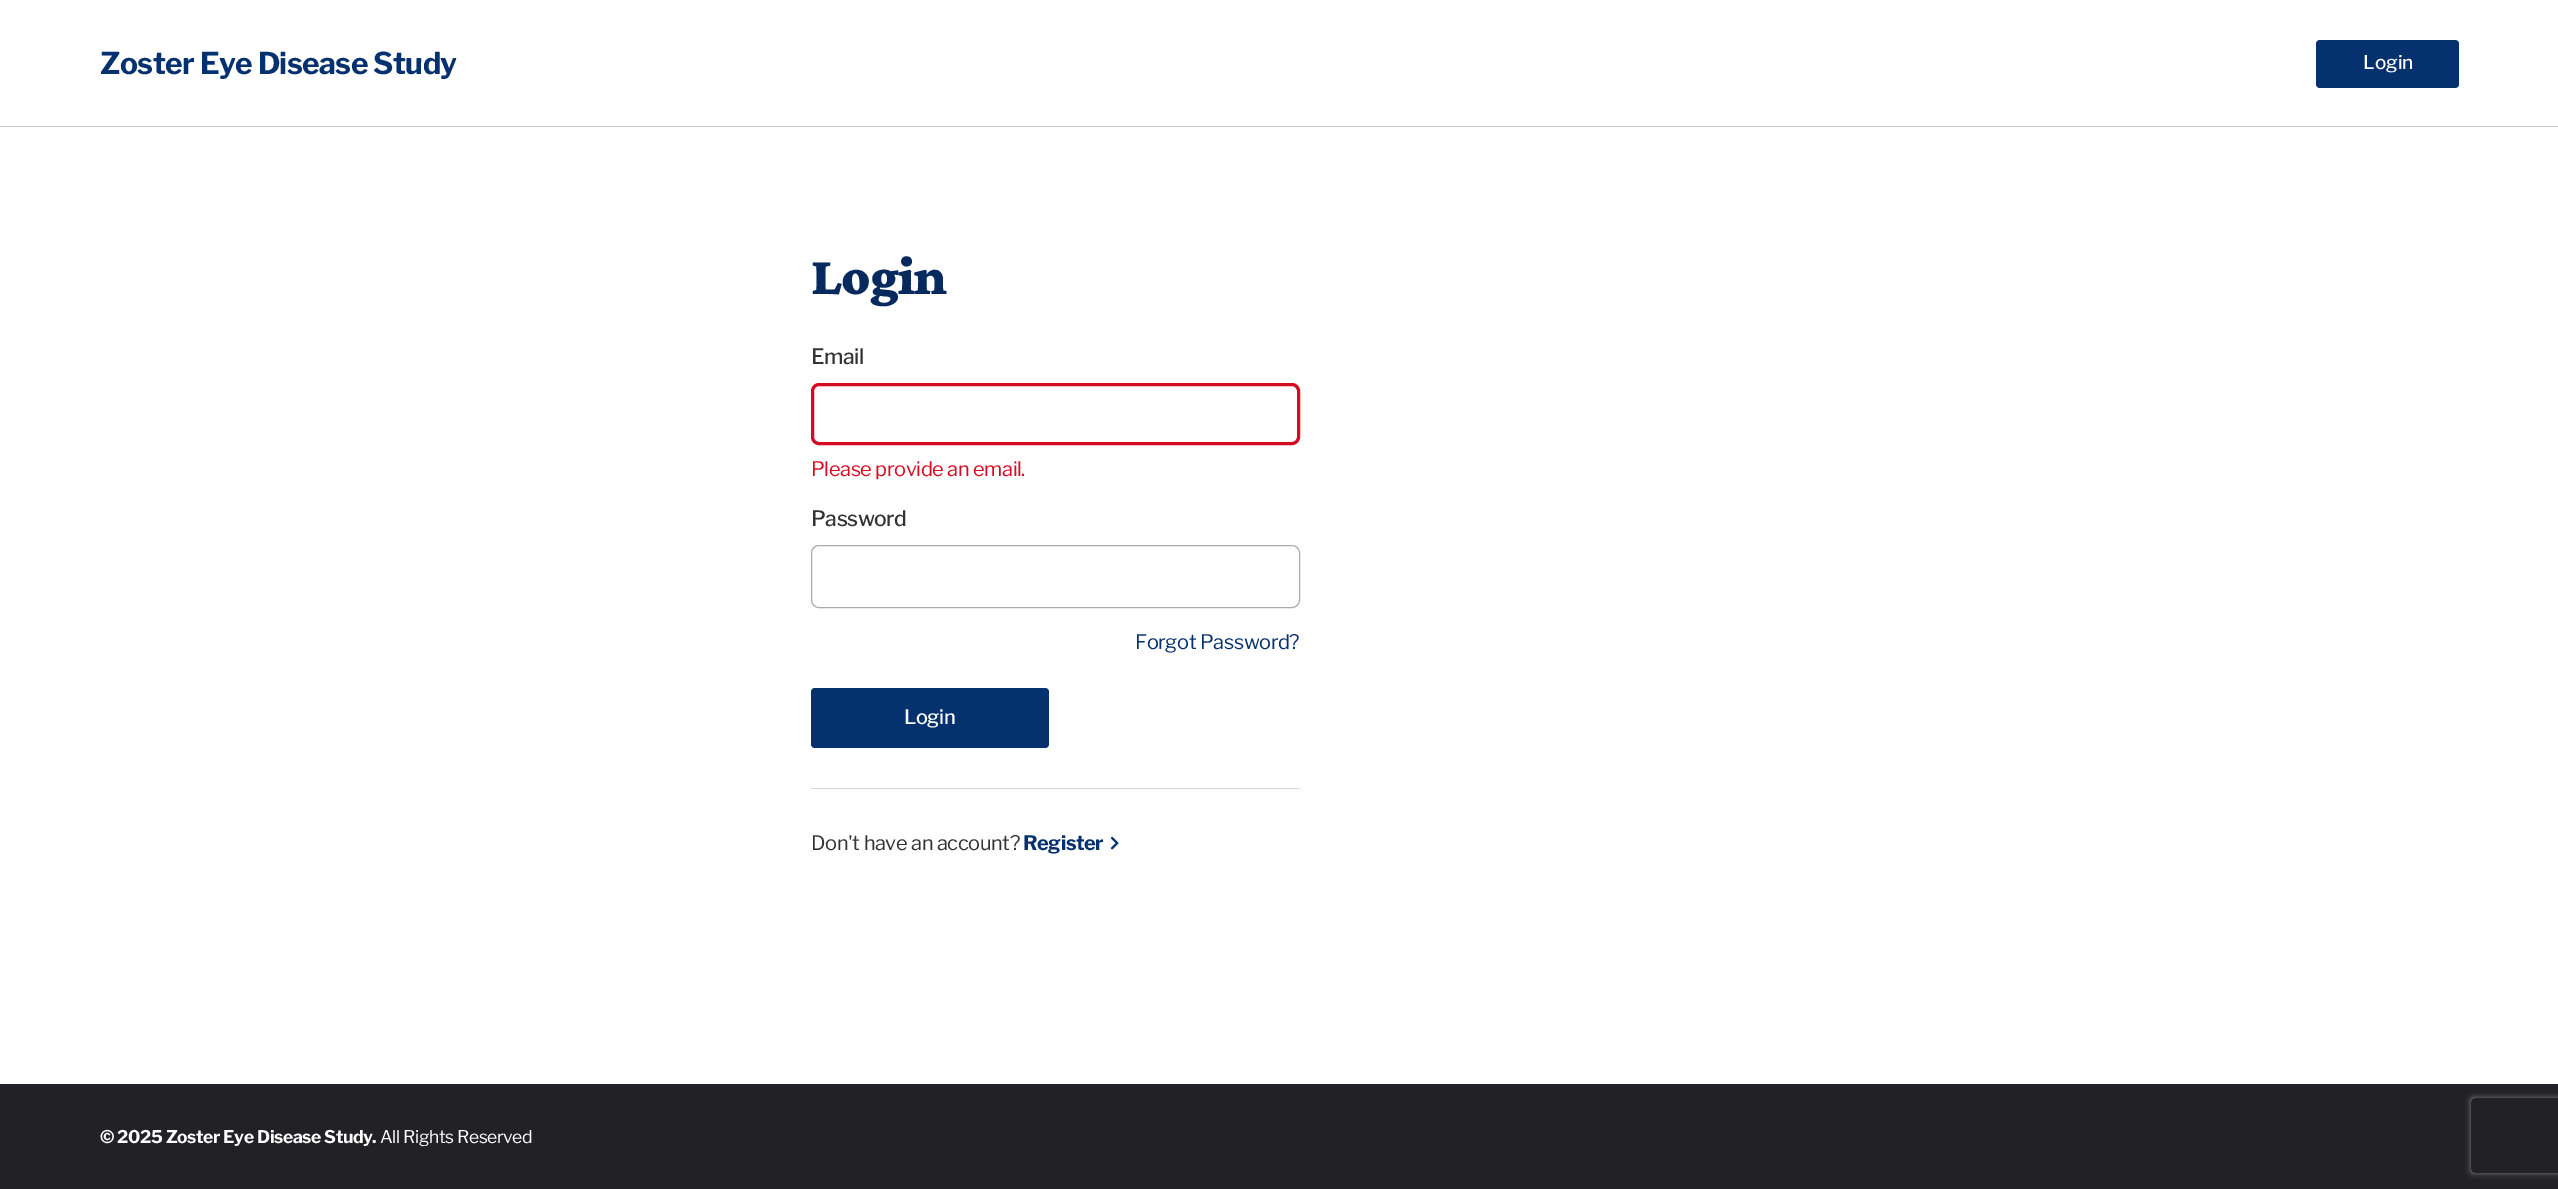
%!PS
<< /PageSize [2558 1189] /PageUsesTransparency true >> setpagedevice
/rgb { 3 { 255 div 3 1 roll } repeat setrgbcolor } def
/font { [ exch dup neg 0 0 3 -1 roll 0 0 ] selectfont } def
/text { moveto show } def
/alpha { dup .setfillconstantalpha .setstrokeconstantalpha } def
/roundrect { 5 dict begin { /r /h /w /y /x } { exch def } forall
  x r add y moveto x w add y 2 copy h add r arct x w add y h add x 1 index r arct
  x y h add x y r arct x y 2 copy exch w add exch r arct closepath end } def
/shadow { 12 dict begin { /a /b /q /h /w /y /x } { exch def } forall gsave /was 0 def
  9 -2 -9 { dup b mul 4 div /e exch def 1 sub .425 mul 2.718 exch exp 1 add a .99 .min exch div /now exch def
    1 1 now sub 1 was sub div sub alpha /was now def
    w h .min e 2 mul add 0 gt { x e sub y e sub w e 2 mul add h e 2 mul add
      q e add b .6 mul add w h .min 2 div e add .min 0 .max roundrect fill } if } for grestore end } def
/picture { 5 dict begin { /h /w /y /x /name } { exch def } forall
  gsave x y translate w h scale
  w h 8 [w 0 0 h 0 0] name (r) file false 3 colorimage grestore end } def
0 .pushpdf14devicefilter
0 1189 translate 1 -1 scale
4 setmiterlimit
255 255 255 rgb
0 0 2558 1189 rectfill
199 199 199 rgb
0 126 2558 1 rectfill
5 49 111 rgb
2316 40 143 48 4 roundrect fill
213 11 34 rgb
3 setlinewidth
812.5 384.5 486 59 6.5 roundrect stroke
171 171 171 rgb
1 setlinewidth
811.5 545.5 488 62 7.5 roundrect stroke
216 216 216 rgb
811 788 489 1 rectfill
5 49 111 rgb
811 688 238 60 4 roundrect fill
(img_01.rgb) 1110 836 9 14 picture
34 34 38 rgb
0 1084 2558 105 rectfill
gsave
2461 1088 moveto 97 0 rlineto 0 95 rlineto -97 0 rlineto closepath 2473.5 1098 moveto 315 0 rlineto 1.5 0 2.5 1 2.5 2.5 rcurveto 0 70 rlineto 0 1.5 -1 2.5 -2.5 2.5 rcurveto -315 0 rlineto -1.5 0 -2.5 -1 -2.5 -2.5 rcurveto 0 -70 rlineto 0 -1.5 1 -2.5 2.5 -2.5 rcurveto closepath eoclip newpath
128 128 128 rgb
2471 1098 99 75 2.5 3 1 shadow
grestore
/LibreFranklin-Bold 30 font
5 49 111 rgb
100 74 moveto -0.6 0 (Zoster Eye Disease Study) ashow
/LibreFranklin-Medium 19 font
255 255 255 rgb
(Login) 2363 69 text
/CrimsonPro-Black 55 font
7 42 94 rgb
811 294 moveto -1 0 (Login) ashow
/LibreFranklin-Medium 21.25 font
51 51 51 rgb
811 364 moveto -0.5 0 (Email) ashow
/LibreFranklin-Regular 20 font
213 11 34 rgb
811 476 moveto -0.4 0 (Please provide an email.) ashow
/LibreFranklin-Medium 21.25 font
51 51 51 rgb
811 526 moveto -0.5 0 (Password) ashow
/LibreFranklin-Regular 20 font
5 49 111 rgb
1135 649 moveto -0.4 0 (Forgot Password?) ashow
/LibreFranklin-Medium 20 font
255 255 255 rgb
904 724 moveto -0.4 0 (Login) ashow
/LibreFranklin-Regular 20 font
51 51 51 rgb
811 850 moveto -0.4 0 (Don't have an account?) ashow
/LibreFranklin-Bold 20 font
5 49 111 rgb
1023 850 moveto -0.4 0 (Register) ashow
/LibreFranklin-Bold 17.5 font
255 255 255 rgb
100 1143 moveto -0.4 0 (© 2025 Zoster Eye Disease Study.) ashow
/LibreFranklin-Regular 17.5 font
380 1143 moveto -0.4 0 (All Rights Reserved) ashow
.poppdf14devicefilter showpage
